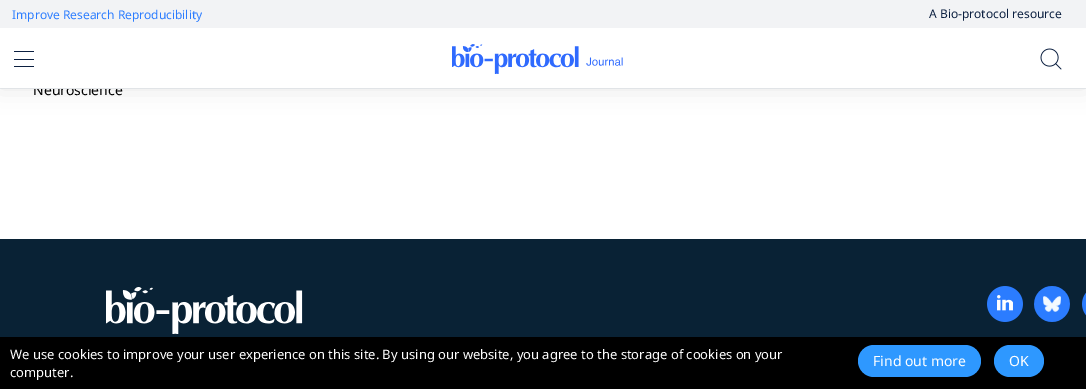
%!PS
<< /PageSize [1086 389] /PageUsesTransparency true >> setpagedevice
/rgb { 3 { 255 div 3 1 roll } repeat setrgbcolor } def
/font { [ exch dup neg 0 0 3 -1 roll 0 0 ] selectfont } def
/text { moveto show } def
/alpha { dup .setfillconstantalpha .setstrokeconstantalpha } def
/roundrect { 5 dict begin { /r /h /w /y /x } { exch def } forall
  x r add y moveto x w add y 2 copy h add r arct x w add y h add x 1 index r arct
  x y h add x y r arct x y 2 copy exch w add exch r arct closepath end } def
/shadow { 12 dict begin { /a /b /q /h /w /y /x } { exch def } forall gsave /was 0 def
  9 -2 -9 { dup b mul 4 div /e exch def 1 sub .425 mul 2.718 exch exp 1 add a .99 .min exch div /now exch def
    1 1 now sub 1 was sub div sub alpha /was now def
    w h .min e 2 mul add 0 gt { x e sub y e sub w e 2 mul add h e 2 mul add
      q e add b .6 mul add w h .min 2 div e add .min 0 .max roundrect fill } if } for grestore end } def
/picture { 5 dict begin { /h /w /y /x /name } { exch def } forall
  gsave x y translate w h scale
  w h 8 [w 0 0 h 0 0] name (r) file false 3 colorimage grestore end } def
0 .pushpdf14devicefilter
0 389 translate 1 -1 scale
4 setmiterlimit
255 255 255 rgb
0 0 1086 389 rectfill
9 34 53 rgb
0 239 1086 98 rectfill
(img_03.rgb) 106 287 197 47 picture
(img_04.rgb) 987 286 36 36 picture
(img_05.rgb) 1034 286 36 36 picture
(img_06.rgb) 1082 292 4 24 picture
0 0 0 rgb
0 337 1086 52 rectfill
46 152 255 rgb
858 345 123 32 16 roundrect fill
994 345 50 32 16 roundrect fill
/NotoSans-Regular 14 font
0 0 0 rgb
(Neuroscience) 33 95 text
237 241 244 rgb
0 88 1086 1 rectfill
0 0 0 rgb
0 0 1086 88 0 12 0.1 shadow
255 255 255 rgb
0 28 1086 60 rectfill
(img_02.rgb) 1040 48 22 22 picture
(img_01.rgb) 452 44 171 30 picture
11 31 64 rgb
14 66 20 1 0.5 roundrect fill
14 59 20 1 0.5 roundrect fill
14 51 20 1 0.5 roundrect fill
242 243 245 rgb
0 0 1086 28 rectfill
/NotoSans-Regular 12 font
43 124 255 rgb
(Improve Research Reproducibility) 12 19 text
11 31 64 rgb
(A Bio-protocol resource) 929 18 text
/NotoSans-Regular 13 font
255 255 255 rgb
(We use cookies to improve your user experience on this site. By using our website, you agree to the storage of cookies on your) 10 359 text
(computer.) 10 377 text
/NotoSans-Regular 14 font
(Find out more) 873 366 text
(OK) 1009 366 text
.poppdf14devicefilter showpage
